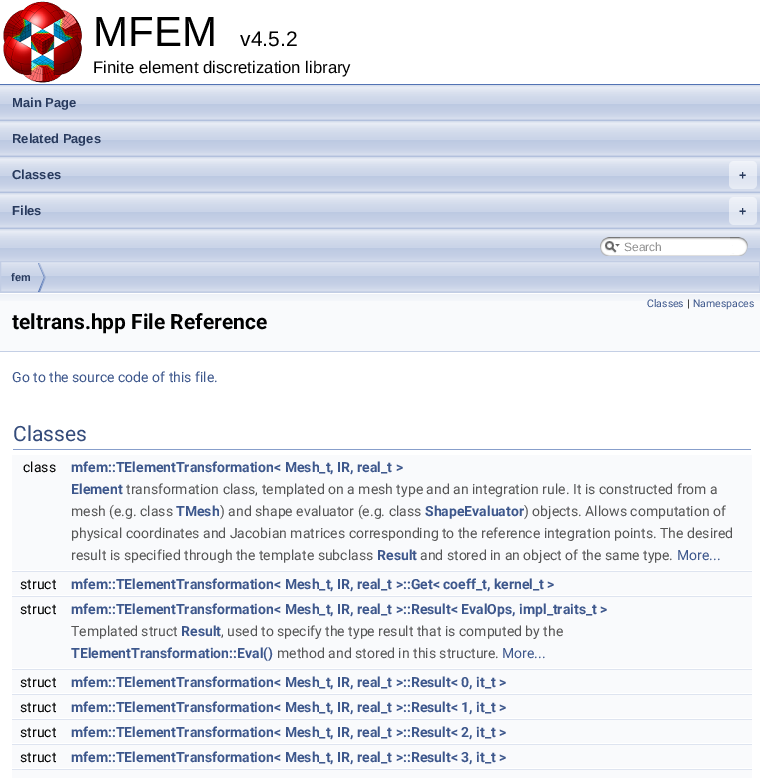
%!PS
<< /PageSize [760 778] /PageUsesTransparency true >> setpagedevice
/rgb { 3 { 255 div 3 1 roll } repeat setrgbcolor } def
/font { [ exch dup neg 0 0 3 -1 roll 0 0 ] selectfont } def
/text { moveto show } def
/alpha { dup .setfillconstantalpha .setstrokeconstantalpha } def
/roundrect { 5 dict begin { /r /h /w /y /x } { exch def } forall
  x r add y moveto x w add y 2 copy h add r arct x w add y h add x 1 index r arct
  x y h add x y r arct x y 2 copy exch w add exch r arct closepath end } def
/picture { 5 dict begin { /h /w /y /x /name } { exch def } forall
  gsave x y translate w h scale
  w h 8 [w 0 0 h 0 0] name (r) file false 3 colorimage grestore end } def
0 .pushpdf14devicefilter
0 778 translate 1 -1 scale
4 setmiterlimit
255 255 255 rgb
0 0 760 778 rectfill
83 115 180 rgb
0 84 760 1 rectfill
(img_01.rgb) 3 1 79 82 picture
(img_02.rgb) 0 85 760 176 picture
0.5 alpha
255 255 255 rgb
729 161 28 28 5 roundrect fill
729 197 28 28 5 roundrect fill
1 alpha
(img_03.rgb) 600 237 20 19 picture
(img_04.rgb) 605 241 15 12 picture
(img_05.rgb) 620 237 110 19 picture
(img_06.rgb) 730 237 18 19 picture
(img_07.rgb) 1 262 758 30 picture
194 205 228 rgb
0.5 261.5 759 31 rectstroke
(img_08.rgb) 38 263 8 29 picture
249 250 252 rgb
0 301 760 50 rectfill
(img_09.rgb) 0 293 760 8 picture
196 207 229 rgb
0 351 760 1 rectfill
135 158 203 rgb
13 449 738 1 rectfill
249 250 252 rgb
12 455 740 23 rectfill
12 478 740 92 rectfill
222 228 240 rgb
12 571 740 1 rectfill
249 250 252 rgb
12 572 740 23 rectfill
222 228 240 rgb
12 596 740 1 rectfill
249 250 252 rgb
12 597 740 23 rectfill
12 620 740 48 rectfill
222 228 240 rgb
12 669 740 1 rectfill
249 250 252 rgb
12 670 740 23 rectfill
222 228 240 rgb
12 694 740 1 rectfill
249 250 252 rgb
12 695 740 23 rectfill
222 228 240 rgb
12 719 740 1 rectfill
249 250 252 rgb
12 720 740 23 rectfill
222 228 240 rgb
12 744 740 1 rectfill
249 250 252 rgb
12 745 740 23 rectfill
222 228 240 rgb
12 769 740 1 rectfill
249 250 252 rgb
12 770 740 8 rectfill
/LiberationSans-Regular 42 font
0 0 0 rgb
(MFEM) 93 46 text
/LiberationSans-Regular 21 font
(v4.5.2) 240 46 text
/LiberationSans-Regular 16.75 font
(Finite element discretization library) 93 73 text
/LiberationSans-Bold 13 font
40 58 93 rgb
(Main Page) 12 107 text
(Related Pages) 12 143 text
(Classes) 12 179 text
/DejaVuSansMono-Bold 12 font
(+) 739 179 text
/LiberationSans-Bold 13 font
(Files) 12 215 text
/DejaVuSansMono-Bold 12 font
(+) 739 215 text
/LiberationSans-Regular 12 font
144 144 144 rgb
(Search) 624 251 text
/LiberationSans-Bold 11 font
40 58 93 rgb
(fem) 11 281 text
/Roboto-Regular 10.5 font
61 87 140 rgb
(Classes) 647 307 text
0 0 0 rgb
(|) 687 307 text
61 87 140 rgb
(Namespaces) 693 307 text
/Roboto-Bold 21 font
0 0 0 rgb
(teltrans.hpp File Reference) 12 329 text
/Roboto-Regular 14 font
61 87 140 rgb
(Go to the source code of this file.) 12 382 text
/Roboto-Regular 21 font
53 76 123 rgb
(Classes) 13 441 text
/Roboto-Regular 14 font
0 0 0 rgb
(class) 23 472 text
/Roboto-Bold 14 font
61 87 140 rgb
(mfem::TElementTransformation< Mesh_t, IR, real_t >) 71 472 text
(Element) 71 494 text
/Roboto-Regular 14 font
85 85 85 rgb
(transformation class, templated on a mesh type and an integration rule. It is constructed from a) 126 494 text
(mesh \(e.g. class) 71 516 text
/Roboto-Bold 14 font
61 87 140 rgb
(TMesh) 176 516 text
/Roboto-Regular 14 font
85 85 85 rgb
(\) and shape evaluator \(e.g. class) 220 516 text
/Roboto-Bold 14 font
61 87 140 rgb
(ShapeEvaluator) 425 516 text
/Roboto-Regular 14 font
85 85 85 rgb
(\) objects. Allows computation of) 524 516 text
(physical coordinates and Jacobian matrices corresponding to the reference integration points. The desired) 71 538 text
(result is specified through the template subclass) 71 560 text
/Roboto-Bold 14 font
61 87 140 rgb
(Result) 377 560 text
/Roboto-Regular 14 font
85 85 85 rgb
(and stored in an object of the same type.) 420 560 text
61 87 140 rgb
(More...) 677 560 text
0 0 0 rgb
(struct) 20 589 text
/Roboto-Bold 14 font
61 87 140 rgb
(mfem::TElementTransformation< Mesh_t, IR, real_t >::Get< coeff_t, kernel_t >) 71 589 text
/Roboto-Regular 14 font
0 0 0 rgb
(struct) 20 614 text
/Roboto-Bold 14 font
61 87 140 rgb
(mfem::TElementTransformation< Mesh_t, IR, real_t >::Result< EvalOps, impl_traits_t >) 71 614 text
/Roboto-Regular 14 font
85 85 85 rgb
(Templated struct) 71 636 text
/Roboto-Bold 14 font
61 87 140 rgb
(Result) 181 636 text
/Roboto-Regular 14 font
85 85 85 rgb
(, used to specify the type result that is computed by the) 221 636 text
/Roboto-Bold 14 font
61 87 140 rgb
(TElementTransformation::Eval\(\)) 71 658 text
/Roboto-Regular 14 font
85 85 85 rgb
(method and stored in this structure.) 277 658 text
61 87 140 rgb
(More...) 502 658 text
0 0 0 rgb
(struct) 20 687 text
/Roboto-Bold 14 font
61 87 140 rgb
(mfem::TElementTransformation< Mesh_t, IR, real_t >::Result< 0, it_t >) 71 687 text
/Roboto-Regular 14 font
0 0 0 rgb
(struct) 20 712 text
/Roboto-Bold 14 font
61 87 140 rgb
(mfem::TElementTransformation< Mesh_t, IR, real_t >::Result< 1, it_t >) 71 712 text
/Roboto-Regular 14 font
0 0 0 rgb
(struct) 20 737 text
/Roboto-Bold 14 font
61 87 140 rgb
(mfem::TElementTransformation< Mesh_t, IR, real_t >::Result< 2, it_t >) 71 737 text
/Roboto-Regular 14 font
0 0 0 rgb
(struct) 20 762 text
/Roboto-Bold 14 font
61 87 140 rgb
(mfem::TElementTransformation< Mesh_t, IR, real_t >::Result< 3, it_t >) 71 762 text
.poppdf14devicefilter showpage
